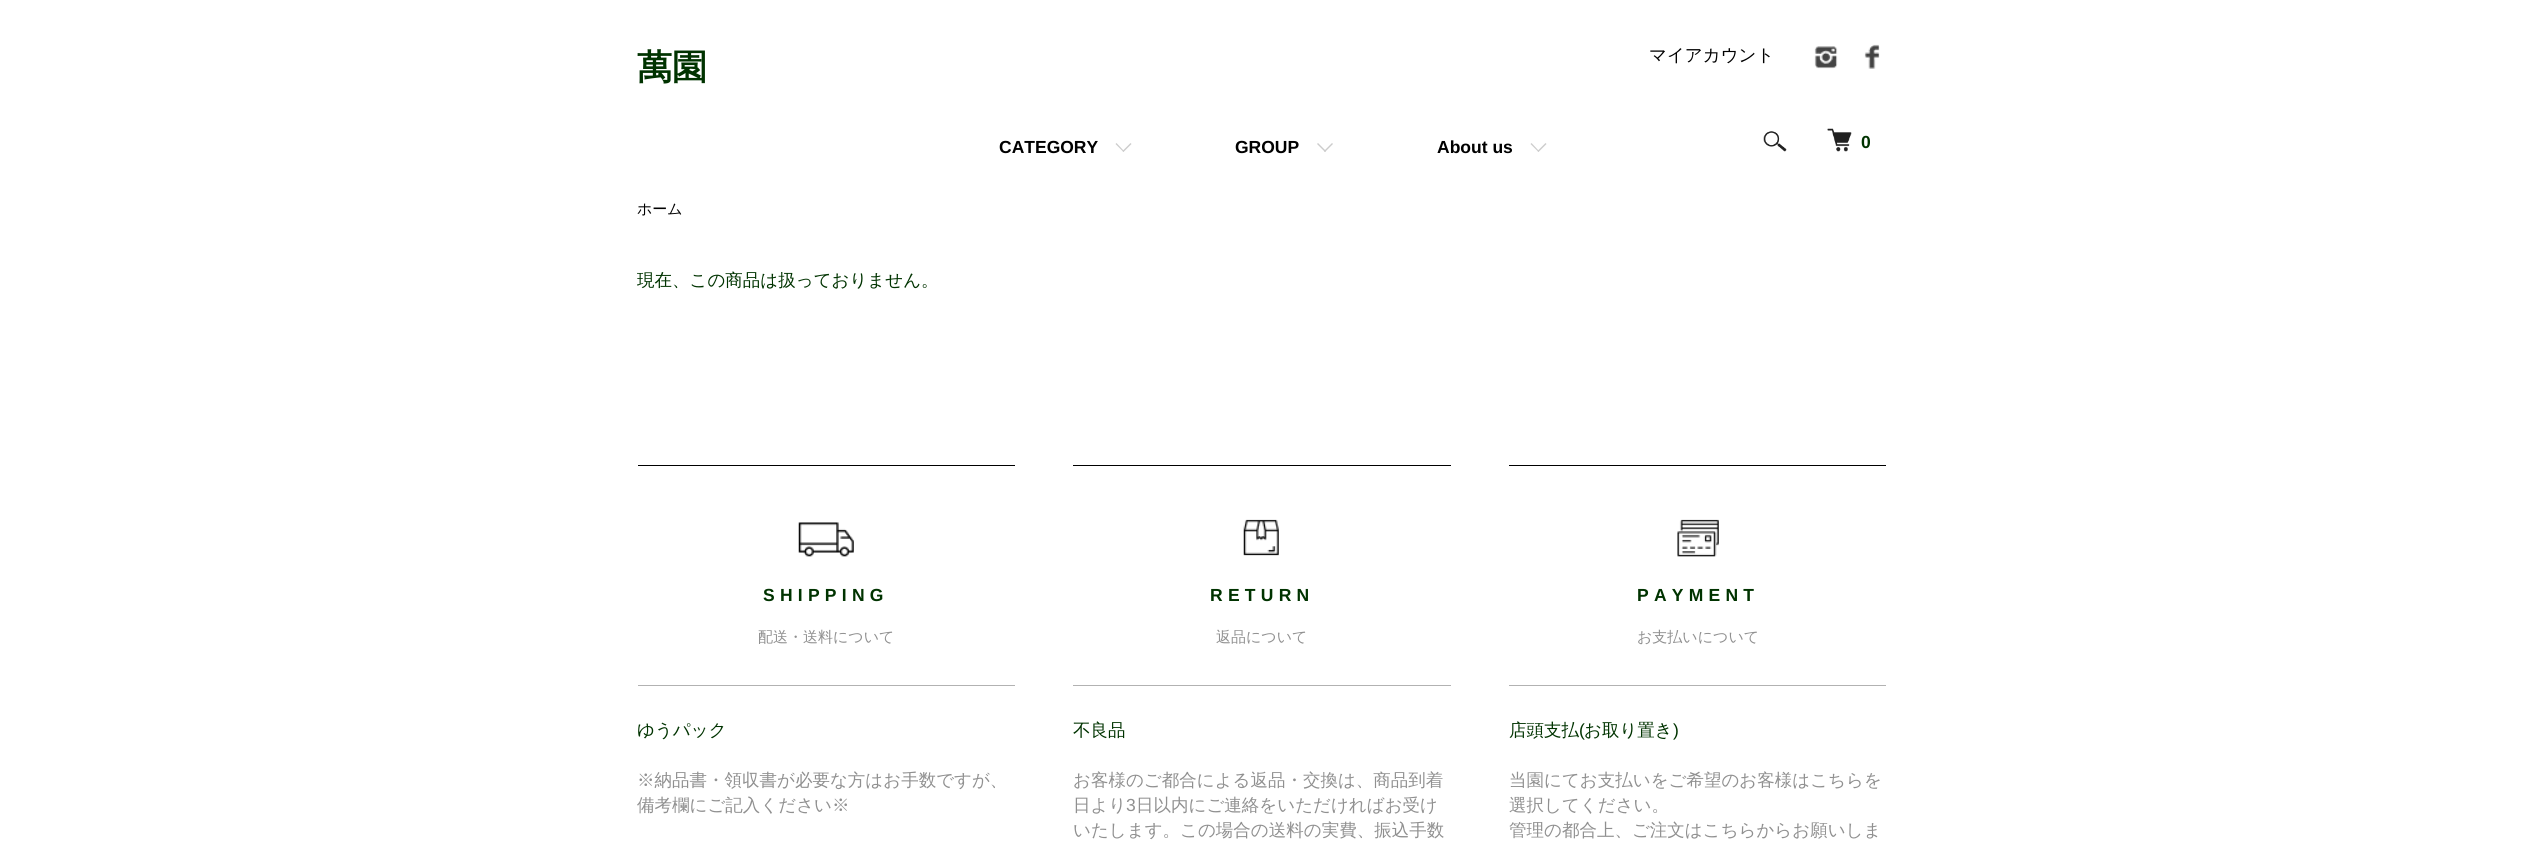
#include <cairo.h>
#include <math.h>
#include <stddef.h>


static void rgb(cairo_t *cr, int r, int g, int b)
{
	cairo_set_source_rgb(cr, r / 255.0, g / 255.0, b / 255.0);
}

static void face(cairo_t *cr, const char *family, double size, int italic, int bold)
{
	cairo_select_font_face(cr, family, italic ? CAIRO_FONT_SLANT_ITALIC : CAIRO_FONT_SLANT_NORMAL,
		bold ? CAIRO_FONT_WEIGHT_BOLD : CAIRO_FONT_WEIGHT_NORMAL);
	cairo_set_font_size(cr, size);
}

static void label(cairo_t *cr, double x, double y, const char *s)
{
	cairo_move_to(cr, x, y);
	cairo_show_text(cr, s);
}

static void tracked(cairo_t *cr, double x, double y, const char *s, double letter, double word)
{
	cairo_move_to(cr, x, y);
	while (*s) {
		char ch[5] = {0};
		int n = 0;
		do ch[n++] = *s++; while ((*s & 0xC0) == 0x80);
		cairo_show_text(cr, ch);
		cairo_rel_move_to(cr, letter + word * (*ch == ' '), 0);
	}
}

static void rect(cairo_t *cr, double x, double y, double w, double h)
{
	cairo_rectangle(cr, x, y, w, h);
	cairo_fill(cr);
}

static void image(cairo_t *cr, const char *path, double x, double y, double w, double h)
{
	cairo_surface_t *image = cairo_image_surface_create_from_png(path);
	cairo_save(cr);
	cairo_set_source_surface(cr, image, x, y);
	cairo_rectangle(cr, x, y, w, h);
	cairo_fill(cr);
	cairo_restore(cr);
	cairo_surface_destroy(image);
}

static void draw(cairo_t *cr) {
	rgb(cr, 255, 255, 255);
	cairo_paint(cr);
	face(cr, "WenQuanYi Zen Hei Medium", 17.5, 0, 0);
	rgb(cr, 0, 0, 0);
	label(cr, 1649, 61, "マイアカウント");
	image(cr, "image0.png", 1814, 46, 24, 23);
	image(cr, "image1.png", 1864, 44, 16, 25);
	face(cr, "Liberation Sans", 17.5, 0, 1);
	label(cr, 999, 153, "CATEGORY");
	rgb(cr, 204, 204, 204);
	cairo_new_path(cr);
	cairo_move_to(cr, 1130.5, 143);
	cairo_line_to(cr, 1131.5, 144);
	cairo_line_to(cr, 1123.5, 152);
	cairo_line_to(cr, 1122.5, 151);
	cairo_close_path(cr);
	cairo_fill(cr);
	cairo_new_path(cr);
	cairo_move_to(cr, 1116.5, 143);
	cairo_line_to(cr, 1124, 151);
	cairo_line_to(cr, 1123.5, 152);
	cairo_line_to(cr, 1115.5, 144);
	cairo_close_path(cr);
	cairo_fill(cr);
	rgb(cr, 0, 0, 0);
	label(cr, 1235, 153, "GROUP");
	rgb(cr, 204, 204, 204);
	cairo_new_path(cr);
	cairo_move_to(cr, 1332, 143);
	cairo_line_to(cr, 1333, 144);
	cairo_line_to(cr, 1325, 152);
	cairo_line_to(cr, 1324, 151);
	cairo_close_path(cr);
	cairo_fill(cr);
	cairo_new_path(cr);
	cairo_move_to(cr, 1318, 143);
	cairo_line_to(cr, 1326, 151);
	cairo_line_to(cr, 1325, 152);
	cairo_line_to(cr, 1317, 144);
	cairo_close_path(cr);
	cairo_fill(cr);
	rgb(cr, 0, 0, 0);
	label(cr, 1437, 153, "About us");
	rgb(cr, 204, 204, 204);
	cairo_new_path(cr);
	cairo_move_to(cr, 1545.5, 143);
	cairo_line_to(cr, 1546.5, 144);
	cairo_line_to(cr, 1538.5, 152);
	cairo_line_to(cr, 1537.5, 151);
	cairo_close_path(cr);
	cairo_fill(cr);
	cairo_new_path(cr);
	cairo_move_to(cr, 1531.5, 143);
	cairo_line_to(cr, 1539, 151);
	cairo_line_to(cr, 1538.5, 152);
	cairo_line_to(cr, 1530.5, 144);
	cairo_close_path(cr);
	cairo_fill(cr);
	face(cr, "WenQuanYi Zen Hei", 35, 0, 1);
	rgb(cr, 0, 51, 0);
	label(cr, 637, 79, "萬園");
	image(cr, "image2.png", 1763, 131, 24, 21);
	image(cr, "image3.png", 1827, 128, 25, 24);
	face(cr, "Liberation Sans", 17.5, 0, 1);
	label(cr, 1861, 148, "0");
	face(cr, "WenQuanYi Zen Hei Medium", 15, 0, 0);
	rgb(cr, 0, 0, 0);
	label(cr, 637, 214, "ホーム");
	face(cr, "WenQuanYi Zen Hei Medium", 17.5, 0, 0);
	rgb(cr, 0, 51, 0);
	label(cr, 637, 286, "現在、この商品は扱っておりません。");
	rgb(cr, 0, 0, 0);
	rect(cr, 638, 465, 377, 1);
	rgb(cr, 178, 178, 178);
	rect(cr, 638, 685, 377, 1);
	image(cr, "image4.png", 798, 522, 56, 35);
	face(cr, "Liberation Sans", 17.5, 0, 1);
	rgb(cr, 0, 51, 0);
	tracked(cr, 763, 601, "SHIPPING", 5.25, 0);
	face(cr, "WenQuanYi Zen Hei Medium", 15, 0, 0);
	rgb(cr, 144, 144, 144);
	label(cr, 758, 642, "配送・送料について");
	face(cr, "WenQuanYi Zen Hei Medium", 17.5, 0, 0);
	rgb(cr, 0, 51, 0);
	label(cr, 637, 736, "ゆうパック");
	rgb(cr, 144, 144, 144);
	label(cr, 637, 786, "※納品書・領収書が必要な方はお手数ですが、");
	label(cr, 637, 811, "備考欄にご記入ください※");
	rgb(cr, 0, 0, 0);
	rect(cr, 1073, 465, 378, 1);
	rgb(cr, 178, 178, 178);
	rect(cr, 1073, 685, 378, 1);
	image(cr, "image5.png", 1243, 519, 36, 37);
	face(cr, "Liberation Sans", 17.5, 0, 1);
	rgb(cr, 0, 51, 0);
	tracked(cr, 1210, 601, "RETURN", 5.25, 0);
	face(cr, "WenQuanYi Zen Hei Medium", 15, 0, 0);
	rgb(cr, 144, 144, 144);
	label(cr, 1216, 642, "返品について");
	face(cr, "WenQuanYi Zen Hei Medium", 17.5, 0, 0);
	rgb(cr, 0, 51, 0);
	label(cr, 1073, 736, "不良品");
	rgb(cr, 144, 144, 144);
	label(cr, 1073, 786, "お客様のご都合による返品・交換は、商品到着");
	label(cr, 1073, 811, "日より");
	face(cr, "Liberation Sans", 17.5, 0, 0);
	label(cr, 1126, 811, "3");
	face(cr, "WenQuanYi Zen Hei Medium", 17.5, 0, 0);
	label(cr, 1136, 811, "日以内にご連絡をいただければお受け");
	label(cr, 1073, 836, "いたします。この場合の送料の実費、振込手数");
	rgb(cr, 0, 0, 0);
	rect(cr, 1509, 465, 377, 1);
	rgb(cr, 178, 178, 178);
	rect(cr, 1509, 685, 377, 1);
	image(cr, "image6.png", 1677, 519, 42, 38);
	face(cr, "Liberation Sans", 17.5, 0, 1);
	rgb(cr, 0, 51, 0);
	tracked(cr, 1637, 601, "PAYMENT", 5.25, 0);
	face(cr, "WenQuanYi Zen Hei Medium", 15, 0, 0);
	rgb(cr, 144, 144, 144);
	label(cr, 1637, 642, "お支払いについて");
	face(cr, "WenQuanYi Zen Hei Medium", 17.5, 0, 0);
	rgb(cr, 0, 51, 0);
	label(cr, 1509, 736, "店頭支払");
	face(cr, "Liberation Sans", 17.5, 0, 0);
	label(cr, 1579, 736, "(");
	face(cr, "WenQuanYi Zen Hei Medium", 17.5, 0, 0);
	label(cr, 1584, 736, "お取り置き");
	face(cr, "Liberation Sans", 17.5, 0, 0);
	label(cr, 1673, 736, ")");
	face(cr, "WenQuanYi Zen Hei Medium", 17.5, 0, 0);
	rgb(cr, 144, 144, 144);
	label(cr, 1509, 786, "当園にてお支払いをご希望のお客様はこちらを");
	label(cr, 1509, 811, "選択してください。");
	label(cr, 1509, 836, "管理の都合上、ご注文はこちらからお願いしま");
}

int main(void) {
	cairo_surface_t *surface = cairo_image_surface_create(CAIRO_FORMAT_RGB24, 2523, 852);
	cairo_t *cr = cairo_create(surface);
	cairo_font_options_t *options = cairo_font_options_create();
	cairo_font_options_set_hint_metrics(options, CAIRO_HINT_METRICS_OFF);
	cairo_font_options_set_hint_style(options, CAIRO_HINT_STYLE_NONE);
	cairo_set_font_options(cr, options);
	cairo_set_miter_limit(cr, 4);
	draw(cr);
	cairo_surface_write_to_png(surface, "render.png");
	cairo_font_options_destroy(options);
	cairo_destroy(cr);
	cairo_surface_destroy(surface);
	return 0;
}
